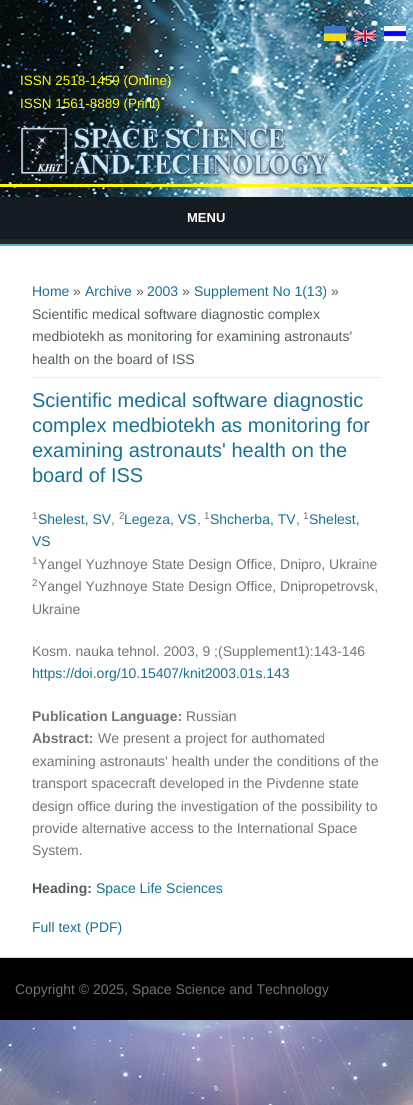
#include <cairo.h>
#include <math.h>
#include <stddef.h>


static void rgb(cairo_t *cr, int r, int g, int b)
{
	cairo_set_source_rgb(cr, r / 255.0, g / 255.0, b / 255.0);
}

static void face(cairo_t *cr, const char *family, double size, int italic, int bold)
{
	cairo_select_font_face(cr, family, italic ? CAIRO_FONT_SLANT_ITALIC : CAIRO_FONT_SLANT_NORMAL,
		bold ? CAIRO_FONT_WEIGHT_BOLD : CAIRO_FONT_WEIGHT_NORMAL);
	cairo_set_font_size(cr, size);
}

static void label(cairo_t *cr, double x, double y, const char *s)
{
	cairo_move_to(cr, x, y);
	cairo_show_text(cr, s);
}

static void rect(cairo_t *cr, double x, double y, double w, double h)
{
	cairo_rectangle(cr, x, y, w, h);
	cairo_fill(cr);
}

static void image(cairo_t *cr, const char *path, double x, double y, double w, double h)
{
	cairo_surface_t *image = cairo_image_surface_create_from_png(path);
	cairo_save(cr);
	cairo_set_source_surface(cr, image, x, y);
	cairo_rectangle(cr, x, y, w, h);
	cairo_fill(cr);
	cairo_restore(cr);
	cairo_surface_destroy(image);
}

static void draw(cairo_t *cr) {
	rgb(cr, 255, 255, 255);
	cairo_paint(cr);
	image(cr, "image0.png", 0, 0, 413, 1105);
	image(cr, "image1.png", 324, 26, 22, 15);
	image(cr, "image2.png", 354, 30, 22, 11);
	image(cr, "image3.png", 384, 26, 22, 15);
	face(cr, "Liberation Sans", 13.5, 0, 0);
	rgb(cr, 253, 248, 9);
	label(cr, 20, 85, "ISSN 2518-1459 (Online)");
	label(cr, 20, 108, "ISSN 1561-8889 (Print)");
	image(cr, "image4.png", 21, 126, 309, 52);
	rect(cr, 0, 184, 413, 3);
	rgb(cr, 39, 39, 39);
	rect(cr, 0, 240, 413, 4);
	rgb(cr, 91, 177, 214);
	rect(cr, 0, 244, 413, 2);
	rgb(cr, 20, 27, 33);
	rect(cr, 0, 197, 413, 42);
	rgb(cr, 30, 38, 45);
	rect(cr, 0, 239, 413, 1);
	face(cr, "Liberation Sans", 13, 0, 1);
	rgb(cr, 255, 255, 255);
	label(cr, 187, 222, "MENU");
	rect(cr, 0, 246, 413, 711);
	rgb(cr, 238, 238, 238);
	rect(cr, 32, 377, 349, 1);
	face(cr, "Liberation Sans", 14, 0, 0);
	rgb(cr, 24, 112, 149);
	label(cr, 32, 296, "Home");
	rgb(cr, 81, 95, 92);
	label(cr, 73, 296, "»");
	rgb(cr, 24, 112, 149);
	label(cr, 85, 296, "Archive");
	rgb(cr, 81, 95, 92);
	label(cr, 136, 296, "»");
	rgb(cr, 24, 112, 149);
	label(cr, 147, 296, "2003");
	rgb(cr, 81, 95, 92);
	label(cr, 182, 296, "»");
	rgb(cr, 24, 112, 149);
	label(cr, 194, 296, "Supplement No 1(13)");
	rgb(cr, 81, 95, 92);
	label(cr, 331, 296, "»");
	label(cr, 32, 319, "Scientific medical software diagnostic complex");
	label(cr, 32, 341, "medbiotekh as monitoring for examining astronauts'");
	label(cr, 32, 364, "health on the board of ISS");
	face(cr, "Liberation Sans", 20, 0, 0);
	rgb(cr, 24, 112, 149);
	label(cr, 32, 407, "Scientific medical software diagnostic");
	label(cr, 32, 432, "complex medbiotekh as monitoring for");
	label(cr, 32, 457, "examining astronauts' health on the");
	label(cr, 32, 482, "board of ISS");
	face(cr, "Liberation Sans", 10, 0, 0);
	rgb(cr, 116, 116, 116);
	label(cr, 32, 519, "1");
	face(cr, "Liberation Sans", 14, 0, 0);
	rgb(cr, 24, 112, 149);
	label(cr, 38, 524, "Shelest, SV");
	rgb(cr, 116, 116, 116);
	label(cr, 111, 524, ",");
	face(cr, "Liberation Sans", 10, 0, 0);
	label(cr, 119, 519, "2");
	face(cr, "Liberation Sans", 14, 0, 0);
	rgb(cr, 24, 112, 149);
	label(cr, 124, 524, "Legeza, VS");
	rgb(cr, 116, 116, 116);
	label(cr, 197, 524, ",");
	face(cr, "Liberation Sans", 10, 0, 0);
	label(cr, 204, 519, "1");
	face(cr, "Liberation Sans", 14, 0, 0);
	rgb(cr, 24, 112, 149);
	label(cr, 210, 524, "Shcherba, TV");
	rgb(cr, 116, 116, 116);
	label(cr, 296, 524, ",");
	face(cr, "Liberation Sans", 10, 0, 0);
	label(cr, 303, 519, "1");
	face(cr, "Liberation Sans", 14, 0, 0);
	rgb(cr, 24, 112, 149);
	label(cr, 309, 524, "Shelest,");
	label(cr, 32, 546, "VS");
	face(cr, "Liberation Sans", 10, 0, 0);
	rgb(cr, 116, 116, 116);
	label(cr, 32, 564, "1");
	face(cr, "Liberation Sans", 14, 0, 0);
	label(cr, 38, 569, "Yangel Yuzhnoye State Design Office, Dnipro, Ukraine");
	face(cr, "Liberation Sans", 10, 0, 0);
	label(cr, 32, 586, "2");
	face(cr, "Liberation Sans", 14, 0, 0);
	label(cr, 38, 591, "Yangel Yuzhnoye State Design Office, Dnipropetrovsk,");
	label(cr, 32, 614, "Ukraine");
	label(cr, 32, 656, "Kosm. nauka tehnol. 2003, 9 ;(Supplement1):143-146");
	rgb(cr, 24, 112, 149);
	label(cr, 32, 678, "https://doi.org/10.15407/knit2003.01s.143");
	face(cr, "Liberation Sans", 14, 0, 1);
	rgb(cr, 116, 116, 116);
	label(cr, 32, 721, "Publication Language:");
	face(cr, "Liberation Sans", 14, 0, 0);
	label(cr, 186, 721, "Russian");
	face(cr, "Liberation Sans", 14, 0, 1);
	label(cr, 32, 743, "Abstract:");
	face(cr, "Liberation Sans", 14, 0, 0);
	label(cr, 98, 743, "We present a project for authomated");
	label(cr, 32, 766, "examining astronauts' health under the conditions of the");
	label(cr, 32, 788, "transport spacecraft developed in the Pivdenne state");
	label(cr, 32, 811, "design office during the investigation of the possibility to");
	label(cr, 32, 833, "provide alternative access to the International Space");
	label(cr, 32, 855, "System.");
	face(cr, "Liberation Sans", 14, 0, 1);
	rgb(cr, 81, 95, 92);
	label(cr, 32, 893, "Heading:");
	face(cr, "Liberation Sans", 14, 0, 0);
	rgb(cr, 24, 112, 149);
	label(cr, 96, 893, "Space Life Sciences");
	label(cr, 32, 932, "Full text (PDF)");
	rgb(cr, 207, 215, 219);
	rect(cr, 0, 957, 413, 1);
	rgb(cr, 0, 0, 0);
	rect(cr, 0, 958, 413, 62);
	rgb(cr, 116, 116, 116);
	label(cr, 15, 994, "Copyright © 2025, Space Science and Technology");
}

int main(void) {
	cairo_surface_t *surface = cairo_image_surface_create(CAIRO_FORMAT_RGB24, 413, 1105);
	cairo_t *cr = cairo_create(surface);
	cairo_font_options_t *options = cairo_font_options_create();
	cairo_font_options_set_hint_metrics(options, CAIRO_HINT_METRICS_OFF);
	cairo_font_options_set_hint_style(options, CAIRO_HINT_STYLE_NONE);
	cairo_set_font_options(cr, options);
	cairo_set_miter_limit(cr, 4);
	draw(cr);
	cairo_surface_write_to_png(surface, "render.png");
	cairo_font_options_destroy(options);
	cairo_destroy(cr);
	cairo_surface_destroy(surface);
	return 0;
}
